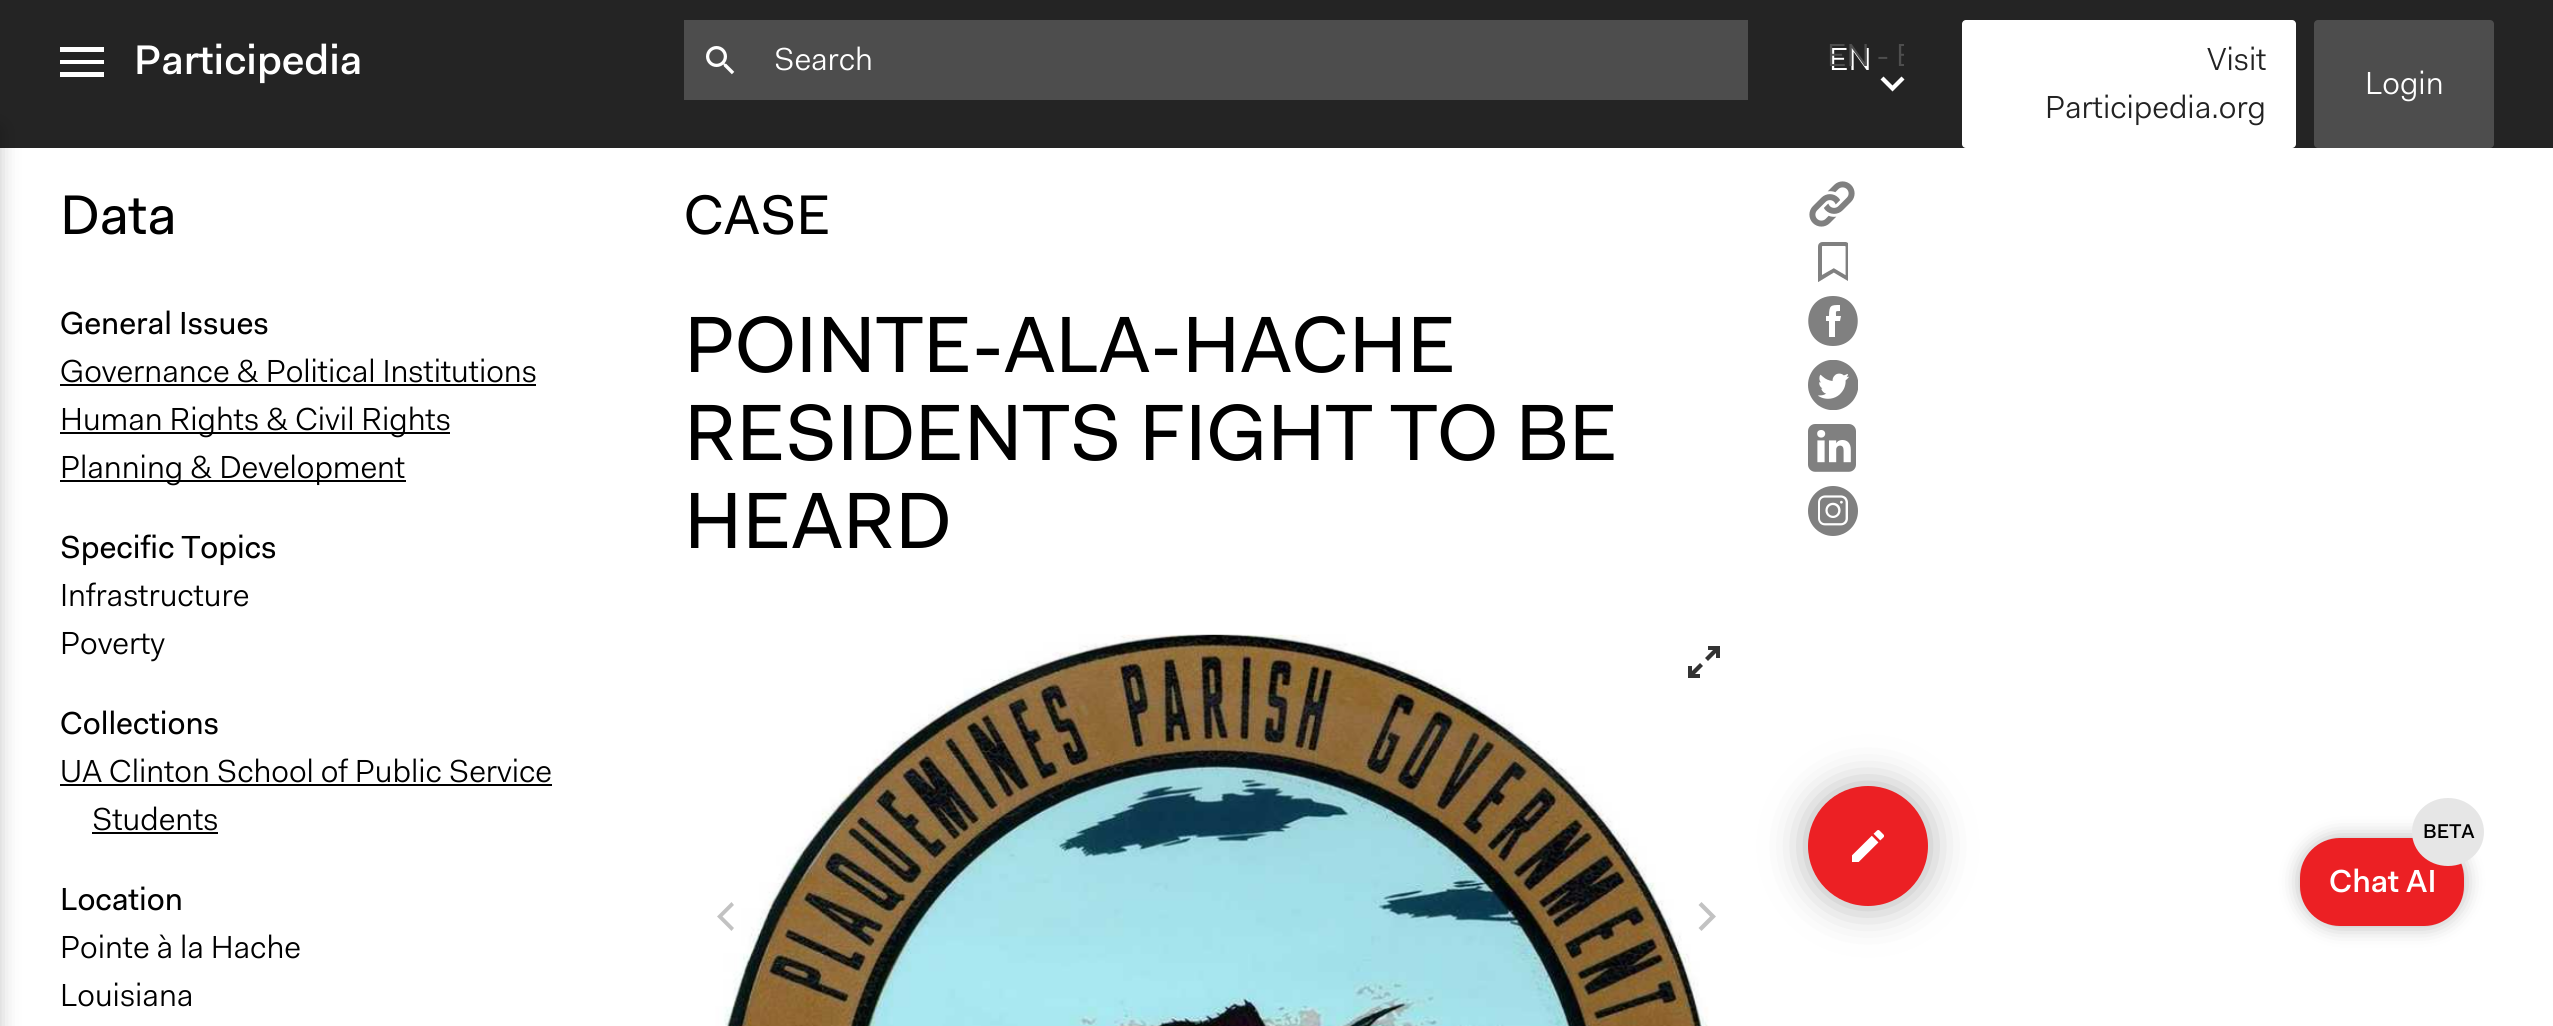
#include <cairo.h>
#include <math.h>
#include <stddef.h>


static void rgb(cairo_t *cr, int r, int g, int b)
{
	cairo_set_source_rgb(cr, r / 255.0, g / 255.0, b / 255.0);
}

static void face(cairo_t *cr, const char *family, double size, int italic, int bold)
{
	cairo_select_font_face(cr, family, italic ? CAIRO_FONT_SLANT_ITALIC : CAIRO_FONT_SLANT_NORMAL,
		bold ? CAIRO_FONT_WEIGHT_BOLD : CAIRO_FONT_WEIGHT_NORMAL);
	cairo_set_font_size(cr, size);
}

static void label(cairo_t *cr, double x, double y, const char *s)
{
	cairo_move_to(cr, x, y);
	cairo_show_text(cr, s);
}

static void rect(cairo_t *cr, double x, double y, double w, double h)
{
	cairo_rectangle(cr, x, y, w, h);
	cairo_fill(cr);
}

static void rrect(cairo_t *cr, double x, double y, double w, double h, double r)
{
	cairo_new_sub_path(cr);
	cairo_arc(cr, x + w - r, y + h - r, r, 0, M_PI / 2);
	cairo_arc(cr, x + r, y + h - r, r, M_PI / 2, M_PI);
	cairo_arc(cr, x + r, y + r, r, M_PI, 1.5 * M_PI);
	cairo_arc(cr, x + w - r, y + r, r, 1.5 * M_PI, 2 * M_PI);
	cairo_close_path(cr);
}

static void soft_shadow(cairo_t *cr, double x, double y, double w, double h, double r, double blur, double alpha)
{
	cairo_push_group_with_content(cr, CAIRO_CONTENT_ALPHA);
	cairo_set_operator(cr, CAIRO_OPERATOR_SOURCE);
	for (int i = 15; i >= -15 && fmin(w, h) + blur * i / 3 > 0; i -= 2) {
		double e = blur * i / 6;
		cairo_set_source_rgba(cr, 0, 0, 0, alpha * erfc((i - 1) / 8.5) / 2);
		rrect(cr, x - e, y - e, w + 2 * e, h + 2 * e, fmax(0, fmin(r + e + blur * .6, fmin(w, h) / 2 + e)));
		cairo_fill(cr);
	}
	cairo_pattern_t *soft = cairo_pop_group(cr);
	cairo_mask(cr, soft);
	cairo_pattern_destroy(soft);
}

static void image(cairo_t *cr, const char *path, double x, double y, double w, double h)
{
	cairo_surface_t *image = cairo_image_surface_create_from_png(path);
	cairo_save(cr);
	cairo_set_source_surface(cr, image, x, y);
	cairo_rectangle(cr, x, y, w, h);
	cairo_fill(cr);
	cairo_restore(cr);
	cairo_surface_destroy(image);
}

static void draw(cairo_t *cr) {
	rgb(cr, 255, 255, 255);
	cairo_paint(cr);
	rgb(cr, 36, 36, 36);
	rect(cr, 0, 0, 2553, 148);
	rgb(cr, 255, 255, 255);
	cairo_set_fill_rule(cr, CAIRO_FILL_RULE_EVEN_ODD);
	cairo_new_path(cr);
	cairo_move_to(cr, 60, 77);
	cairo_line_to(cr, 104, 77);
	cairo_line_to(cr, 104, 72);
	cairo_line_to(cr, 60, 72);
	cairo_close_path(cr);
	cairo_move_to(cr, 60, 64);
	cairo_line_to(cr, 104, 64);
	cairo_line_to(cr, 104, 60);
	cairo_line_to(cr, 60, 60);
	cairo_close_path(cr);
	cairo_move_to(cr, 60, 52);
	cairo_line_to(cr, 104, 52);
	cairo_line_to(cr, 104, 47);
	cairo_line_to(cr, 60, 47);
	cairo_close_path(cr);
	cairo_fill(cr);
	face(cr, "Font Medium", 41.5, 0, 0);
	label(cr, 134, 74, "Participedia");
	rgb(cr, 77, 77, 77);
	rect(cr, 684, 20, 1064, 80);
	image(cr, "image0.png", 706, 46, 29, 29);
	face(cr, "Font Light", 32, 0, 0);
	rgb(cr, 255, 255, 255);
	label(cr, 774, 70, "Search");
	cairo_new_path(cr);
	cairo_move_to(cr, 1901.5, 76.5);
	cairo_line_to(cr, 1904.5, 79.5);
	cairo_line_to(cr, 1892.5, 91.5);
	cairo_line_to(cr, 1880.5, 79.5);
	cairo_line_to(cr, 1883.5, 76.5);
	cairo_line_to(cr, 1892.5, 85.5);
	cairo_close_path(cr);
	cairo_fill(cr);
	label(cr, 1829, 70, "EN");
	cairo_save(cr);
	cairo_set_fill_rule(cr, CAIRO_FILL_RULE_WINDING);
	cairo_rectangle(cr, 1826, 38, 78, 36);
	cairo_clip(cr);
	rgb(cr, 78, 78, 78);
	label(cr, 1827, 66, "EN - E");
	cairo_restore(cr);
	rrect(cr, 1962, 20, 334, 128, 4);
	cairo_fill(cr);
	rgb(cr, 34, 34, 34);
	label(cr, 2207, 70, "Visit");
	label(cr, 2045, 118, "Participedia.org");
	rgb(cr, 77, 77, 77);
	rrect(cr, 2314, 20, 180, 128, 4);
	cairo_fill(cr);
	rgb(cr, 255, 255, 255);
	label(cr, 2365, 94, "Login");
	rgb(cr, 0, 0, 0);
	soft_shadow(cr, -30, 128, 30, 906, 0, 10, 0.23);
	face(cr, "Font", 56, 0, 0);
	rgb(cr, 0, 0, 0);
	label(cr, 60, 234, "Data");
	face(cr, "Font", 32, 0, 0);
	label(cr, 60, 334, "General Issues");
	face(cr, "Font Light", 32, 0, 0);
	label(cr, 60, 382, "Governance & Political Institutions");
	rect(cr, 60, 384, 476, 2);
	rect(cr, 60, 432, 390, 2);
	label(cr, 60, 430, "Human Rights & Civil Rights");
	rect(cr, 60, 480, 346, 2);
	label(cr, 60, 478, "Planning & Development");
	face(cr, "Font", 32, 0, 0);
	label(cr, 60, 558, "Specific Topics");
	face(cr, "Font Light", 32, 0, 0);
	label(cr, 60, 606, "Infrastructure");
	label(cr, 60, 654, "Poverty");
	face(cr, "Font", 32, 0, 0);
	label(cr, 60, 734, "Collections");
	face(cr, "Font Light", 32, 0, 0);
	label(cr, 60, 782, "UA Clinton School of Public Service");
	rect(cr, 60, 784, 492, 2);
	label(cr, 92, 830, "Students");
	rect(cr, 92, 832, 126, 2);
	face(cr, "Font", 32, 0, 0);
	label(cr, 60, 910, "Location");
	face(cr, "Font Light", 32, 0, 0);
	label(cr, 60, 958, "Pointe à la Hache");
	label(cr, 60, 1006, "Louisiana");
	face(cr, "Font", 56, 0, 0);
	label(cr, 684, 234, "CASE");
	face(cr, "Font", 80, 0, 0);
	label(cr, 684, 372, "POINTE-ALA-HACHE");
	label(cr, 684, 460, "RESIDENTS FIGHT TO BE");
	label(cr, 684, 548, "HEARD");
	image(cr, "image1.png", 684, 618, 1064, 408);
	image(cr, "image2.png", 1688, 646, 32, 32);
	rgb(cr, 194, 194, 194);
	cairo_set_fill_rule(cr, CAIRO_FILL_RULE_WINDING);
	cairo_new_path(cr);
	cairo_move_to(cr, 717, 916.5);
	cairo_line_to(cr, 731.5, 931);
	cairo_line_to(cr, 734, 928);
	cairo_line_to(cr, 722.5, 916.5);
	cairo_line_to(cr, 734, 905);
	cairo_line_to(cr, 731.5, 902);
	cairo_close_path(cr);
	cairo_fill(cr);
	cairo_new_path(cr);
	cairo_move_to(cr, 1716, 916.5);
	cairo_line_to(cr, 1701.5, 902);
	cairo_line_to(cr, 1698.5, 905);
	cairo_line_to(cr, 1710, 916.5);
	cairo_line_to(cr, 1698.5, 928);
	cairo_line_to(cr, 1701.5, 931);
	cairo_close_path(cr);
	cairo_fill(cr);
	image(cr, "image3.png", 1809, 181, 46, 46);
	image(cr, "image4.png", 1818, 242, 30, 40);
	rgb(cr, 128, 128, 128);
	cairo_new_path(cr);
	cairo_move_to(cr, 1833, 296);
	cairo_curve_to(cr, 1800, 296, 1800, 346, 1833, 346);
	cairo_curve_to(cr, 1866, 346, 1866, 296, 1833, 296);
	cairo_close_path(cr);
	cairo_move_to(cr, 1840, 311);
	cairo_curve_to(cr, 1835, 311, 1836, 311, 1836, 316);
	cairo_line_to(cr, 1841, 316);
	cairo_line_to(cr, 1840, 321);
	cairo_line_to(cr, 1835, 321);
	cairo_line_to(cr, 1835, 337);
	cairo_line_to(cr, 1829, 337);
	cairo_line_to(cr, 1829, 321);
	cairo_line_to(cr, 1826, 321);
	cairo_line_to(cr, 1826, 316);
	cairo_line_to(cr, 1829, 316);
	cairo_curve_to(cr, 1829, 305, 1831, 305, 1840, 305);
	cairo_close_path(cr);
	cairo_fill(cr);
	image(cr, "image5.png", 1808, 360, 50, 50);
	image(cr, "image6.png", 1808, 424, 48, 48);
	image(cr, "image7.png", 1808, 486, 50, 50);
	rgb(cr, 179, 179, 179);
	soft_shadow(cr, 1806, 784, 124, 124, 62, 20, 1);
	rgb(cr, 236, 32, 36);
	cairo_arc(cr, 1868, 846, 60, 0, 2 * M_PI);
	cairo_fill(cr);
	image(cr, "image8.png", 1852, 830, 32, 32);
	rgb(cr, 0, 0, 0);
	soft_shadow(cr, 2300, 838, 164, 88, 40, 10, 0.3);
	rgb(cr, 236, 32, 36);
	rrect(cr, 2300, 838, 164, 88, 40);
	cairo_fill(cr);
	rgb(cr, 230, 230, 230);
	cairo_new_path(cr);
	cairo_move_to(cr, 2448, 798);
	cairo_curve_to(cr, 2468, 798, 2484, 813, 2484, 832);
	cairo_curve_to(cr, 2484, 851, 2468, 866, 2448, 866);
	cairo_curve_to(cr, 2428, 866, 2412, 851, 2412, 832);
	cairo_curve_to(cr, 2412, 813, 2428, 798, 2448, 798);
	cairo_close_path(cr);
	cairo_fill(cr);
	face(cr, "Font Medium", 20, 0, 0);
	rgb(cr, 0, 0, 0);
	label(cr, 2423, 838, "BETA");
	face(cr, "Font Medium", 32, 0, 0);
	rgb(cr, 255, 255, 255);
	label(cr, 2329, 892, "Chat AI");
}

int main(void) {
	cairo_surface_t *surface = cairo_image_surface_create(CAIRO_FORMAT_RGB24, 2553, 1026);
	cairo_t *cr = cairo_create(surface);
	cairo_font_options_t *options = cairo_font_options_create();
	cairo_font_options_set_hint_metrics(options, CAIRO_HINT_METRICS_OFF);
	cairo_font_options_set_hint_style(options, CAIRO_HINT_STYLE_NONE);
	cairo_set_font_options(cr, options);
	cairo_set_miter_limit(cr, 4);
	draw(cr);
	cairo_surface_write_to_png(surface, "render.png");
	cairo_font_options_destroy(options);
	cairo_destroy(cr);
	cairo_surface_destroy(surface);
	return 0;
}
